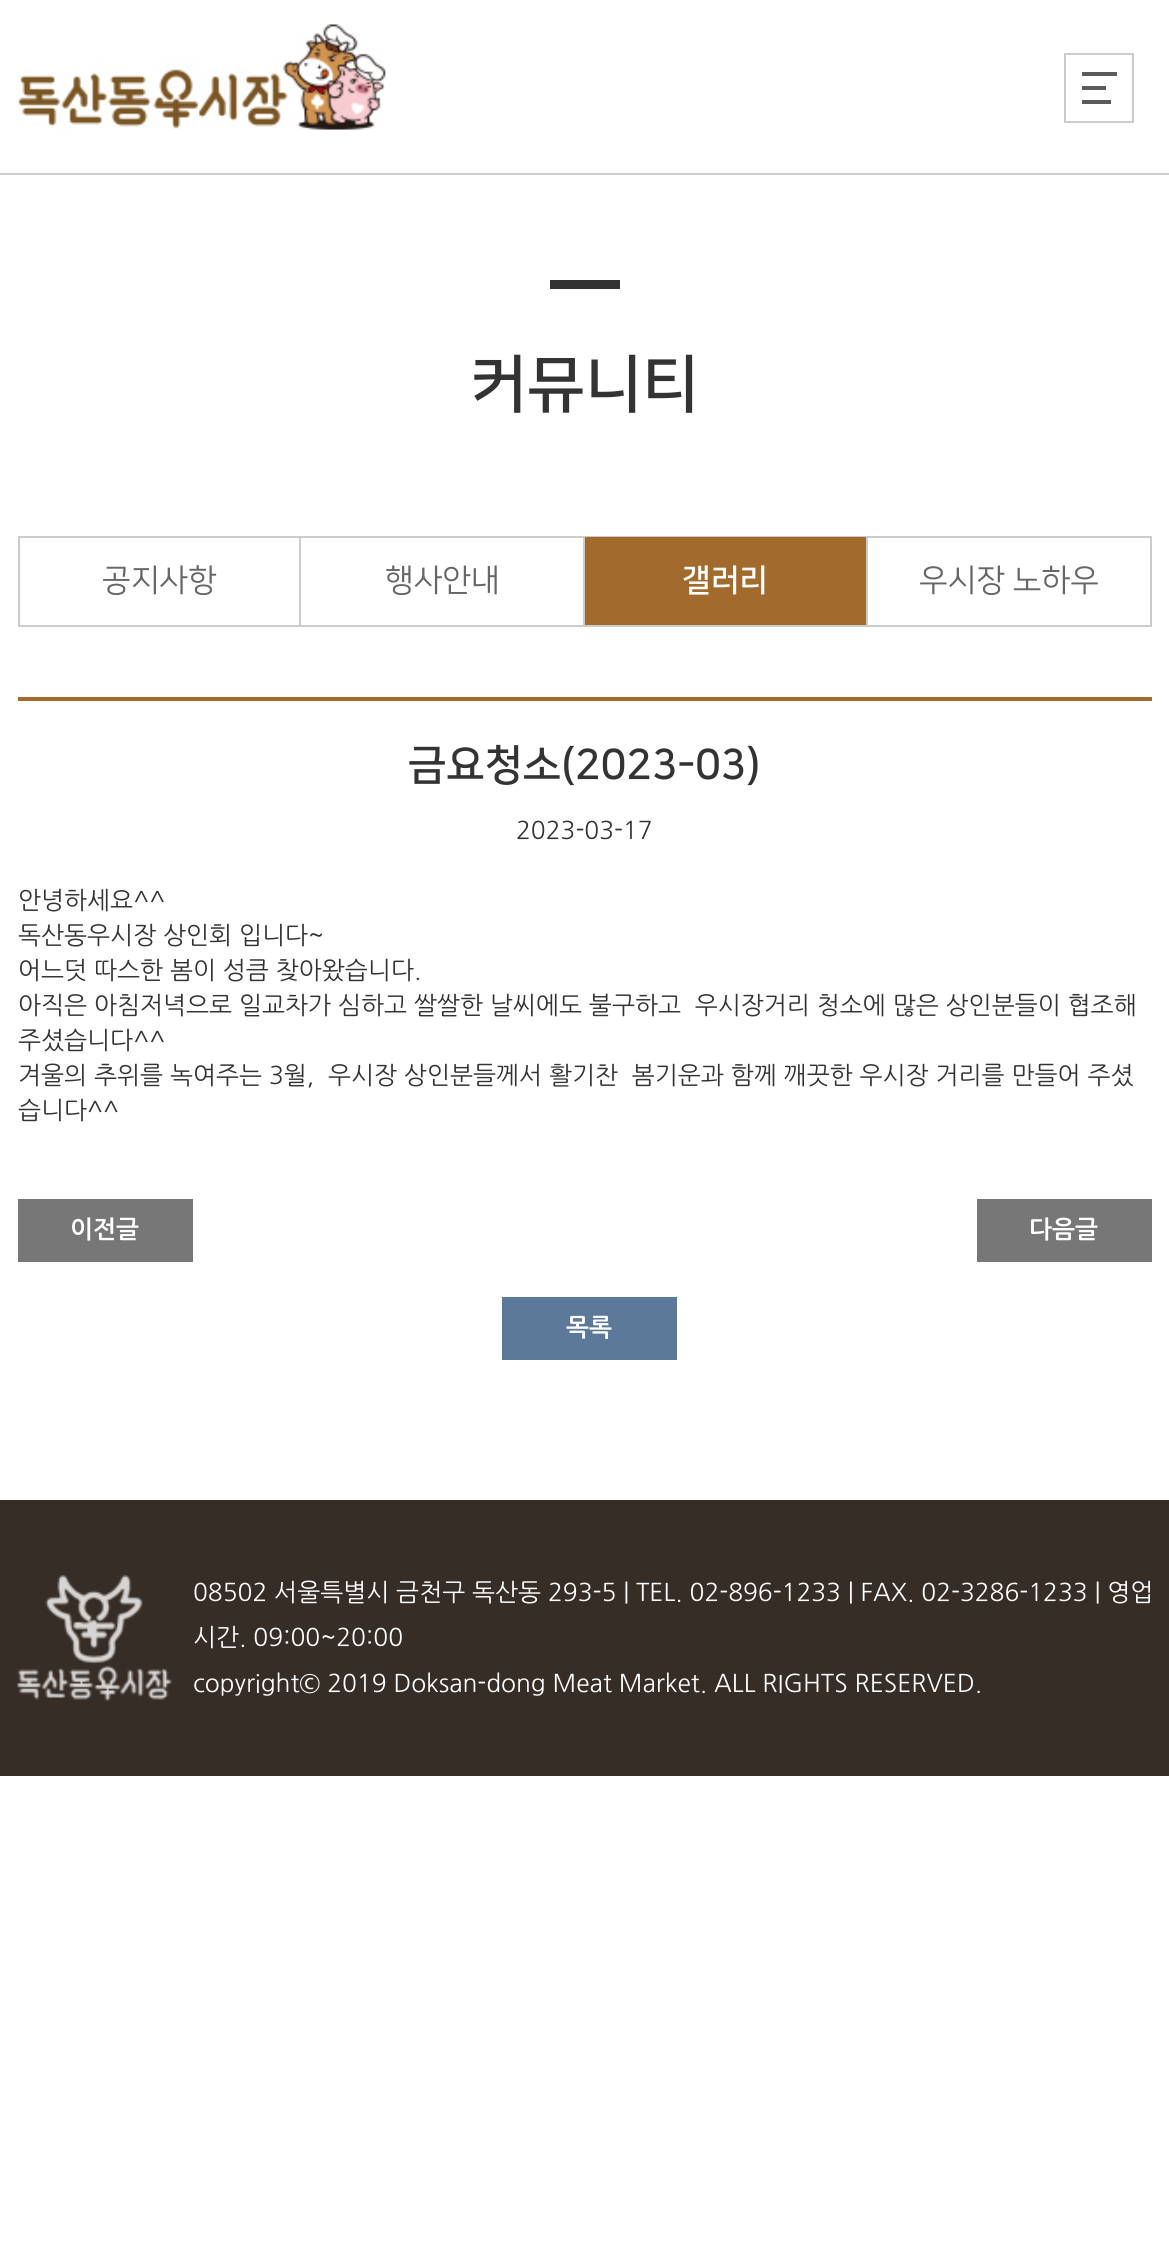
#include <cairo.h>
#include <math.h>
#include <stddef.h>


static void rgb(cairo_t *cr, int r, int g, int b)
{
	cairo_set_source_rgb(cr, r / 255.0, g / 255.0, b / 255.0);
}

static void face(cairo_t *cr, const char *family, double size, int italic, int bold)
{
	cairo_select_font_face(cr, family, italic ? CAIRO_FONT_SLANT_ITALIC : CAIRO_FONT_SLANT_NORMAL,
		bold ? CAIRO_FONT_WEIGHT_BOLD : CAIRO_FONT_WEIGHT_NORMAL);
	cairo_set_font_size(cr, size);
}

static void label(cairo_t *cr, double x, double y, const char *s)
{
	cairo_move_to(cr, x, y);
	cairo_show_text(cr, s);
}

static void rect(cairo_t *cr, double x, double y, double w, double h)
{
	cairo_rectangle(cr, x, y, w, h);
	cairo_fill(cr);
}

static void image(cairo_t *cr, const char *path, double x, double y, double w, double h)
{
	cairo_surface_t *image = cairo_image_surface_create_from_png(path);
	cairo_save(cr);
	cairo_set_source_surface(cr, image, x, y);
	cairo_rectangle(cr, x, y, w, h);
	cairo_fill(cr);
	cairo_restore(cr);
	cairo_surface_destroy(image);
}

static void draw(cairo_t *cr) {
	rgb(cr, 255, 255, 255);
	cairo_paint(cr);
	rgb(cr, 204, 204, 204);
	rect(cr, 0, 173, 1169, 2);
	image(cr, "image0.png", 18, 24, 368, 106);
	cairo_rectangle(cr, 1065, 54, 68, 68);
	cairo_stroke(cr);
	rgb(cr, 91, 91, 91);
	rect(cr, 1082, 72, 35, 4);
	rect(cr, 1082, 86, 24, 4);
	rect(cr, 1082, 100, 29, 4);
	rgb(cr, 51, 51, 51);
	rect(cr, 550, 280, 70, 9);
	face(cr, "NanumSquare", 63, 0, 1);
	label(cr, 470, 404, "커뮤니티");
	rgb(cr, 204, 204, 204);
	rect(cr, 18, 536, 1134, 2);
	rect(cr, 18, 625, 1134, 2);
	rect(cr, 299, 537, 2, 88);
	rect(cr, 18, 537, 2, 88);
	face(cr, "NanumSquare", 31.5, 0, 0);
	rgb(cr, 102, 102, 102);
	label(cr, 102, 590, "공지사항");
	rgb(cr, 204, 204, 204);
	rect(cr, 583, 537, 2, 88);
	rgb(cr, 102, 102, 102);
	label(cr, 385, 590, "행사안내");
	rgb(cr, 204, 204, 204);
	rect(cr, 866, 537, 2, 88);
	rgb(cr, 163, 106, 45);
	rect(cr, 585, 537, 281, 88);
	face(cr, "NanumSquare", 31.5, 0, 1);
	rgb(cr, 255, 255, 255);
	label(cr, 682, 590, "갤러리");
	rgb(cr, 204, 204, 204);
	rect(cr, 1150, 537, 2, 88);
	face(cr, "NanumSquare", 31.5, 0, 0);
	rgb(cr, 102, 102, 102);
	label(cr, 919, 590, "우시장 노하우");
	rgb(cr, 163, 106, 45);
	rect(cr, 18, 697, 1134, 4);
	face(cr, "NanumSquare", 42, 0, 1);
	rgb(cr, 51, 51, 51);
	label(cr, 408, 778, "금요청소(2023-03)");
	face(cr, "NanumGothic", 24.5, 0, 0);
	label(cr, 516, 839, "2023-03-17");
	label(cr, 18, 909, "안녕하세요^^");
	label(cr, 18, 944, "독산동우시장 상인회 입니다~");
	label(cr, 18, 979, "어느덧 따스한 봄이 성큼 찾아왔습니다.");
	label(cr, 18, 1014, "아직은 아침저녁으로 일교차가 심하고 쌀쌀한 날씨에도 불구하고  우시장거리 청소에 많은 상인분들이 협조해");
	label(cr, 18, 1049, "주셨습니다^^");
	label(cr, 18, 1084, "겨울의 추위를 녹여주는 3월,  우시장 상인분들께서 활기찬  봄기운과 함께 깨끗한 우시장 거리를 만들어 주셨");
	label(cr, 18, 1119, "습니다^^");
	rgb(cr, 119, 119, 119);
	rect(cr, 18, 1199, 175, 63);
	face(cr, "NanumGothic", 24.5, 0, 1);
	rgb(cr, 255, 255, 255);
	label(cr, 70, 1238, "이전글");
	rgb(cr, 119, 119, 119);
	rect(cr, 977, 1199, 175, 63);
	rgb(cr, 255, 255, 255);
	label(cr, 1029, 1238, "다음글");
	rgb(cr, 92, 121, 154);
	rect(cr, 502, 1297, 175, 63);
	rgb(cr, 255, 255, 255);
	label(cr, 566, 1336, "목록");
	rgb(cr, 54, 45, 38);
	rect(cr, 0, 1500, 1169, 276);
	image(cr, "image1.png", 17, 1575, 155, 126);
	face(cr, "NanumGothic", 24.5, 0, 0);
	rgb(cr, 255, 255, 255);
	label(cr, 193, 1601, "08502 서울특별시 금천구 독산동 293-5 | TEL. 02-896-1233 | FAX. 02-3286-1233 | 영업");
	label(cr, 193, 1646, "시간. 09:00~20:00");
	label(cr, 193, 1692, "copyright© 2019 Doksan-dong Meat Market. ALL RIGHTS RESERVED.");
}

int main(void) {
	cairo_surface_t *surface = cairo_image_surface_create(CAIRO_FORMAT_RGB24, 1169, 2245);
	cairo_t *cr = cairo_create(surface);
	cairo_font_options_t *options = cairo_font_options_create();
	cairo_font_options_set_hint_metrics(options, CAIRO_HINT_METRICS_OFF);
	cairo_font_options_set_hint_style(options, CAIRO_HINT_STYLE_NONE);
	cairo_set_font_options(cr, options);
	cairo_set_miter_limit(cr, 4);
	draw(cr);
	cairo_surface_write_to_png(surface, "render.png");
	cairo_font_options_destroy(options);
	cairo_destroy(cr);
	cairo_surface_destroy(surface);
	return 0;
}
